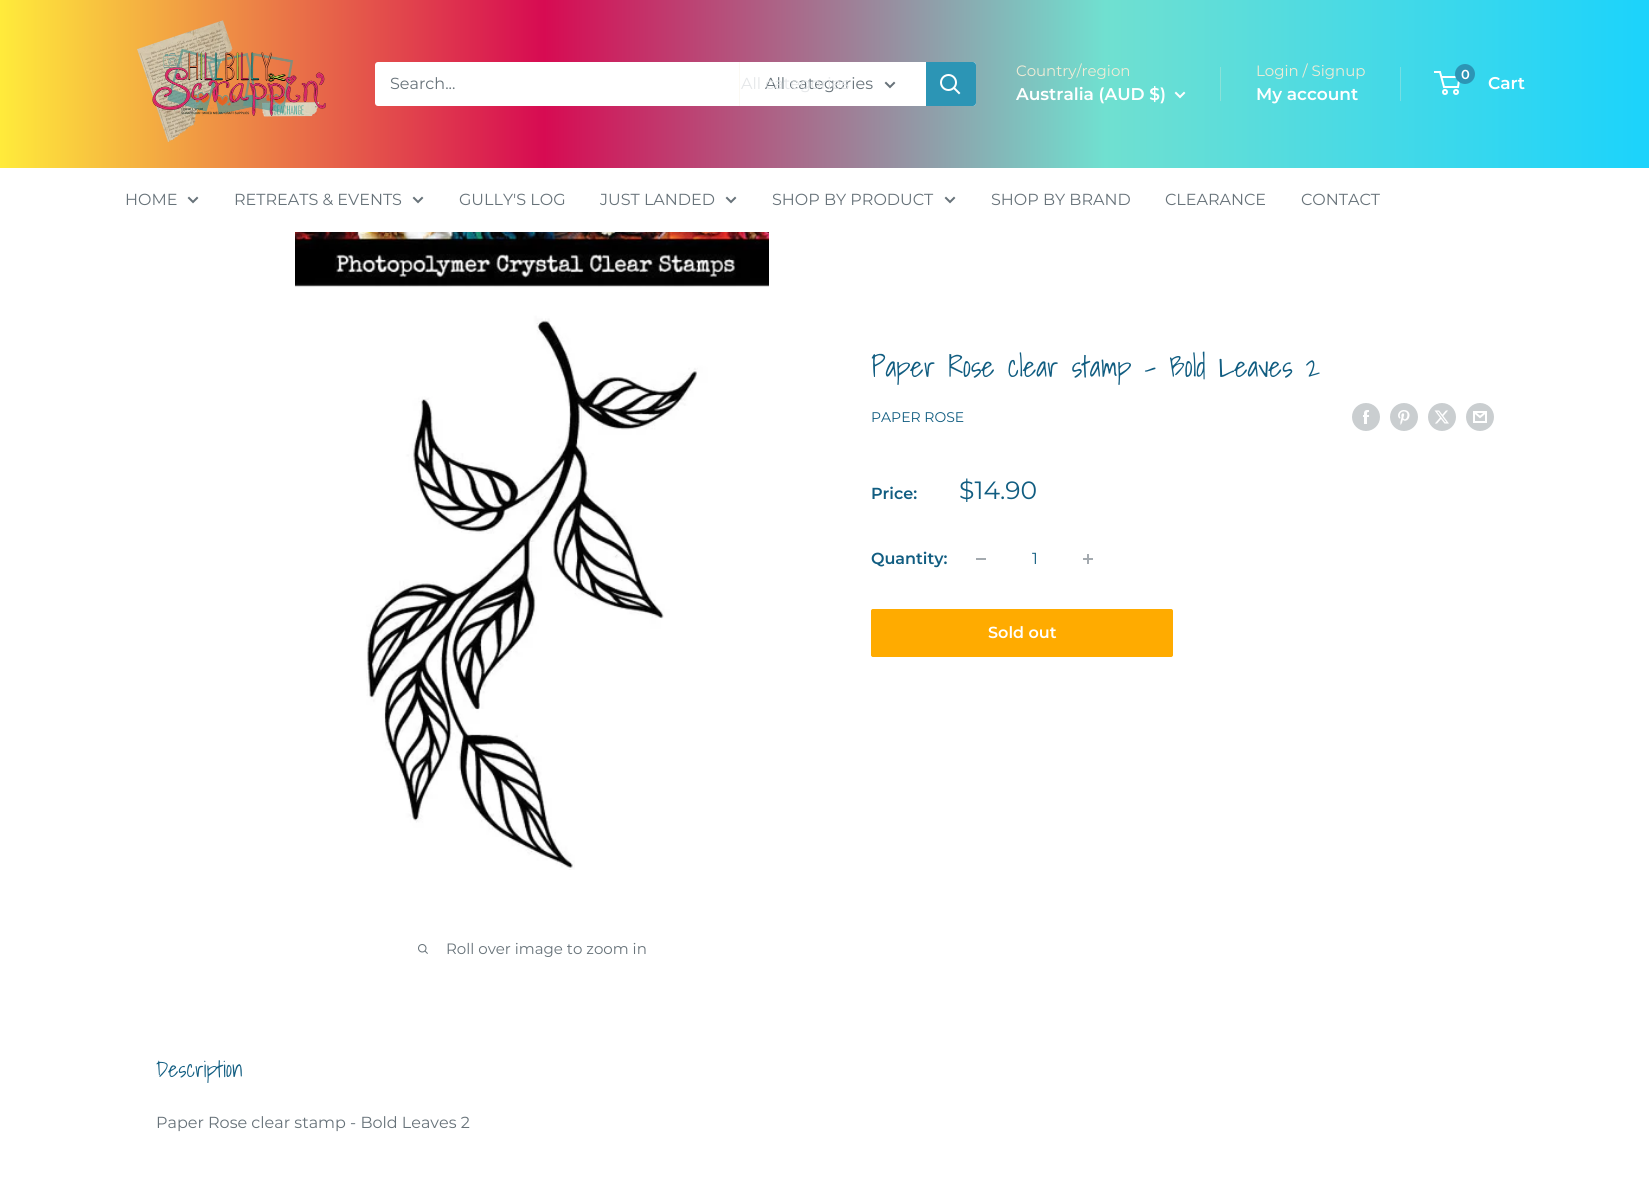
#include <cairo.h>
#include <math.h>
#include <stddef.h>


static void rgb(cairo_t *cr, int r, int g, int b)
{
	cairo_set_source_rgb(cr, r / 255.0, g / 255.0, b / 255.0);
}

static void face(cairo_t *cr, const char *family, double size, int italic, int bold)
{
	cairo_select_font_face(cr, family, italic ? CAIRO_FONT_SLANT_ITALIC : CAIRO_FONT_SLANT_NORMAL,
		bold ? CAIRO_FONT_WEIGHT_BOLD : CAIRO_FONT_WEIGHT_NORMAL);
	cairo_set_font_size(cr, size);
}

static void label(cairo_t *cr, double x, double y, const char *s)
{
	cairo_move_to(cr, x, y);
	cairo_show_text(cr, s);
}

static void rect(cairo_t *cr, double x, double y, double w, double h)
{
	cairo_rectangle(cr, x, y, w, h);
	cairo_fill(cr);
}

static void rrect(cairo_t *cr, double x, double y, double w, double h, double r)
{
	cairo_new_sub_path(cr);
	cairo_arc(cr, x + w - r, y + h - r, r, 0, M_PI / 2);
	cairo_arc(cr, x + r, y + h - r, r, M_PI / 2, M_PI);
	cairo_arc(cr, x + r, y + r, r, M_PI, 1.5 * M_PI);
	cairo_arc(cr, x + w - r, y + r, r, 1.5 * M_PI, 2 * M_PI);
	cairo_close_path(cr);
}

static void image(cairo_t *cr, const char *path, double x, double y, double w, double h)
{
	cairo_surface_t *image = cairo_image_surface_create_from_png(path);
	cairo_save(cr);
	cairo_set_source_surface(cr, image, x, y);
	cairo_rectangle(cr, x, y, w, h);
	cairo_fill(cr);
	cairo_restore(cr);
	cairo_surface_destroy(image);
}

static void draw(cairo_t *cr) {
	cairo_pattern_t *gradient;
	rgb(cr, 255, 255, 255);
	cairo_paint(cr);
	gradient = cairo_pattern_create_linear(1649, 84, 0, 84);
	cairo_pattern_add_color_stop_rgba(gradient, 0, 0.106, 0.827, 0.988, 1);
	cairo_pattern_add_color_stop_rgba(gradient, 0.33, 0.439, 0.878, 0.816, 1);
	cairo_pattern_add_color_stop_rgba(gradient, 0.67, 0.843, 0.043, 0.322, 1);
	cairo_pattern_add_color_stop_rgba(gradient, 1, 1, 0.922, 0.231, 1);
	cairo_set_source(cr, gradient);
	cairo_pattern_destroy(gradient);
	rect(cr, 0, 0, 1649, 168);
	image(cr, "image0.png", 137, 20, 189, 122);
	rgb(cr, 255, 255, 255);
	rrect(cr, 375, 62, 601, 44, 3);
	cairo_fill(cr);
	face(cr, "Montserrat", 16, 0, 0);
	rgb(cr, 103, 114, 121);
	label(cr, 390, 89, "Search...");
	rgb(cr, 251, 249, 243);
	rect(cr, 739, 62, 1, 44);
	rgb(cr, 103, 114, 121);
	label(cr, 765, 89, "All categories");
	rgb(cr, 229, 231, 233);
	label(cr, 741, 89, "All categories");
	cairo_new_path(cr);
	cairo_move_to(cr, 894, 83);
	cairo_line_to(cr, 890, 87);
	cairo_line_to(cr, 886, 83);
	rgb(cr, 103, 114, 121);
	cairo_set_line_cap(cr, CAIRO_LINE_CAP_SQUARE);
	cairo_stroke(cr);
	rgb(cr, 44, 149, 181);
	cairo_new_path(cr);
	cairo_move_to(cr, 926, 62);
	cairo_line_to(cr, 973, 62);
	cairo_curve_to(cr, 974.5, 62, 976, 63.5, 976, 65);
	cairo_line_to(cr, 976, 103);
	cairo_curve_to(cr, 976, 104.5, 974.5, 106, 973, 106);
	cairo_line_to(cr, 926, 106);
	cairo_close_path(cr);
	cairo_fill(cr);
	cairo_new_path(cr);
	cairo_move_to(cr, 959, 93);
	cairo_line_to(cr, 954, 88);
	rgb(cr, 255, 255, 255);
	cairo_stroke(cr);
	cairo_arc(cr, 948.5, 82.5, 7.5, 0, 2 * M_PI);
	cairo_set_line_cap(cr, CAIRO_LINE_CAP_BUTT);
	cairo_stroke(cr);
	face(cr, "Montserrat", 15, 0, 0);
	rgb(cr, 240, 235, 214);
	label(cr, 1016, 76, "Country/region");
	face(cr, "Montserrat SemiBold", 17, 0, 0);
	rgb(cr, 255, 255, 255);
	label(cr, 1016, 100, "Australia (AUD $)");
	cairo_new_path(cr);
	cairo_move_to(cr, 1184, 93);
	cairo_line_to(cr, 1180, 97);
	cairo_line_to(cr, 1176, 93);
	cairo_set_line_cap(cr, CAIRO_LINE_CAP_SQUARE);
	cairo_stroke(cr);
	rgb(cr, 138, 225, 216);
	rect(cr, 1220, 67, 1, 34);
	face(cr, "Montserrat", 15, 0, 0);
	rgb(cr, 240, 235, 214);
	label(cr, 1256, 76, "Login / Signup");
	rgb(cr, 118, 222, 227);
	rect(cr, 1400, 67, 1, 34);
	face(cr, "Montserrat SemiBold", 17, 0, 0);
	rgb(cr, 255, 255, 255);
	label(cr, 1256, 100, "My account");
	cairo_new_path(cr);
	cairo_arc(cr, 1445, 92, 2, 0, 2 * M_PI);
	cairo_set_line_cap(cr, CAIRO_LINE_CAP_BUTT);
	cairo_stroke(cr);
	cairo_arc(cr, 1456, 92, 2, 0, 2 * M_PI);
	cairo_stroke(cr);
	cairo_new_path(cr);
	cairo_move_to(cr, 1441.5, 77);
	cairo_line_to(cr, 1459.5, 77);
	cairo_line_to(cr, 1458, 87);
	cairo_line_to(cr, 1444, 87);
	cairo_line_to(cr, 1440, 72);
	cairo_line_to(cr, 1434, 72);
	cairo_stroke(cr);
	rgb(cr, 44, 149, 181);
	cairo_arc(cr, 1465, 74, 10, 0, 2 * M_PI);
	cairo_fill(cr);
	face(cr, "Montserrat SemiBold", 13, 0, 0);
	rgb(cr, 255, 255, 255);
	label(cr, 1461, 79, "0");
	face(cr, "Montserrat SemiBold", 17, 0, 0);
	label(cr, 1488, 89, "Cart");
	face(cr, "Montserrat", 16, 0, 0);
	rgb(cr, 103, 114, 121);
	label(cr, 125, 205, "HOME");
	cairo_new_path(cr);
	cairo_move_to(cr, 197, 198);
	cairo_line_to(cr, 193, 202);
	cairo_line_to(cr, 189, 198);
	cairo_set_line_cap(cr, CAIRO_LINE_CAP_SQUARE);
	cairo_stroke(cr);
	label(cr, 234, 205, "RETREATS & EVENTS");
	cairo_new_path(cr);
	cairo_move_to(cr, 422, 198);
	cairo_line_to(cr, 418, 202);
	cairo_line_to(cr, 414, 198);
	cairo_stroke(cr);
	label(cr, 459, 205, "GULLY'S LOG");
	label(cr, 600, 205, "JUST LANDED");
	cairo_new_path(cr);
	cairo_move_to(cr, 735, 198);
	cairo_line_to(cr, 731, 202);
	cairo_line_to(cr, 727, 198);
	cairo_stroke(cr);
	label(cr, 772, 205, "SHOP BY PRODUCT");
	cairo_new_path(cr);
	cairo_move_to(cr, 954, 198);
	cairo_line_to(cr, 950, 202);
	cairo_line_to(cr, 946, 198);
	cairo_stroke(cr);
	label(cr, 991, 205, "SHOP BY BRAND");
	label(cr, 1165, 205, "CLEARANCE");
	label(cr, 1301, 205, "CONTACT");
	face(cr, "Shadows Into Light", 29, 0, 0);
	rgb(cr, 17, 93, 129);
	label(cr, 871, 377, "Paper Rose clear stamp - Bold Leaves 2");
	face(cr, "Montserrat", 14, 0, 0);
	label(cr, 871, 422, "PAPER ROSE");
	image(cr, "image1.png", 1352, 403, 28, 28);
	image(cr, "image2.png", 1390, 403, 28, 28);
	image(cr, "image3.png", 1428, 403, 28, 28);
	image(cr, "image4.png", 1466, 403, 28, 28);
	face(cr, "Montserrat SemiBold", 16, 0, 0);
	label(cr, 871, 499, "Price:");
	face(cr, "Montserrat", 25, 0, 0);
	label(cr, 959, 499, "$14.90");
	face(cr, "Montserrat SemiBold", 16, 0, 0);
	label(cr, 871, 564, "Quantity:");
	rgb(cr, 164, 170, 175);
	rect(cr, 976, 558, 10, 2);
	face(cr, "Montserrat", 16, 0, 0);
	rgb(cr, 17, 93, 129);
	label(cr, 1032, 564, "1");
	image(cr, "image5.png", 1083, 554, 10, 10);
	rgb(cr, 255, 171, 0);
	rrect(cr, 871.5, 609.5, 301, 47, 1.5);
	cairo_fill_preserve(cr);
	cairo_set_line_width(cr, 1);
	cairo_set_line_cap(cr, CAIRO_LINE_CAP_BUTT);
	cairo_stroke(cr);
	face(cr, "Montserrat SemiBold", 16, 0, 0);
	rgb(cr, 255, 255, 255);
	label(cr, 988, 638, "Sold out");
	image(cr, "image6.png", 295, 232, 474, 638);
	image(cr, "image7.png", 418, 944, 10, 10);
	face(cr, "Montserrat", 15, 0, 0);
	rgb(cr, 103, 114, 121);
	label(cr, 446, 954, "Roll over image to zoom in");
	face(cr, "Shadows Into Light", 22, 0, 0);
	rgb(cr, 17, 93, 129);
	label(cr, 156, 1077, "Description");
	face(cr, "Montserrat", 16, 0, 0);
	rgb(cr, 103, 114, 121);
	label(cr, 156, 1128, "Paper Rose clear stamp - Bold Leaves 2");
}

int main(void) {
	cairo_surface_t *surface = cairo_image_surface_create(CAIRO_FORMAT_RGB24, 1649, 1192);
	cairo_t *cr = cairo_create(surface);
	cairo_font_options_t *options = cairo_font_options_create();
	cairo_font_options_set_hint_metrics(options, CAIRO_HINT_METRICS_OFF);
	cairo_font_options_set_hint_style(options, CAIRO_HINT_STYLE_NONE);
	cairo_set_font_options(cr, options);
	cairo_set_miter_limit(cr, 4);
	draw(cr);
	cairo_surface_write_to_png(surface, "render.png");
	cairo_font_options_destroy(options);
	cairo_destroy(cr);
	cairo_surface_destroy(surface);
	return 0;
}
